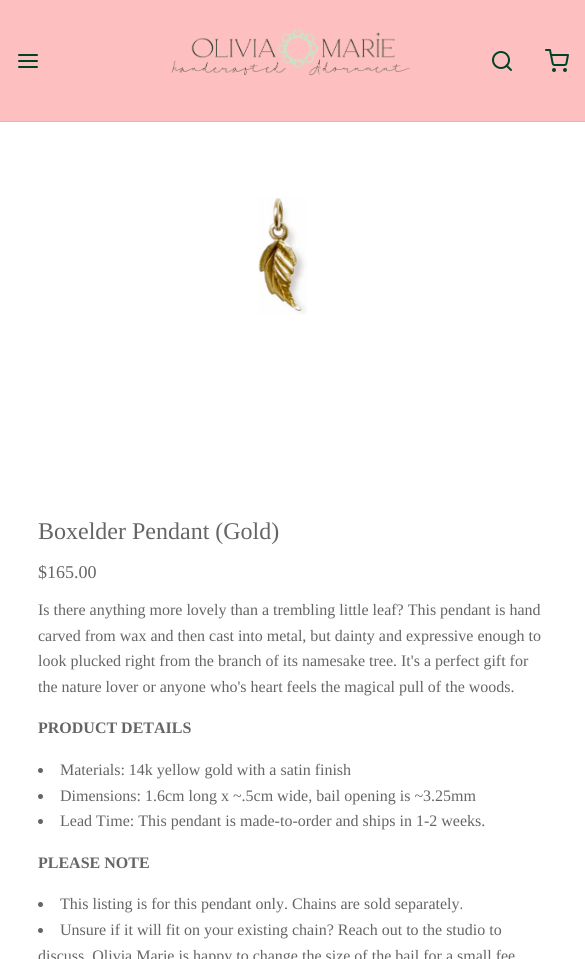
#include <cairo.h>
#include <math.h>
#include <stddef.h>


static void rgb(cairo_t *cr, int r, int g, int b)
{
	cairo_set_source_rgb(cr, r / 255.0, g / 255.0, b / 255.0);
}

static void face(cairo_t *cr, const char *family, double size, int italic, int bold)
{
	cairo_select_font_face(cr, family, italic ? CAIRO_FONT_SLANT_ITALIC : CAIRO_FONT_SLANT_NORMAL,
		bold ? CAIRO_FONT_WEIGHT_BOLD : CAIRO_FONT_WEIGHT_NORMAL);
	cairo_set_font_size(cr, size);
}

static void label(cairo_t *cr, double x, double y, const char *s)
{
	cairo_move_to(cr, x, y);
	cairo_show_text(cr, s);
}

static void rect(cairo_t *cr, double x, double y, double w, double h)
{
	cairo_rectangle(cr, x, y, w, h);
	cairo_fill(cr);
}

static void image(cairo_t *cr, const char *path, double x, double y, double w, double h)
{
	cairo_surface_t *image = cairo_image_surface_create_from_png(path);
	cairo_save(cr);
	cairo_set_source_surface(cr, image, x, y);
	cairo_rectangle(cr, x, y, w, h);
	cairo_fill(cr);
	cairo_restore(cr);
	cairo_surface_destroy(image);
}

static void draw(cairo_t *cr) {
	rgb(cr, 255, 255, 255);
	cairo_paint(cr);
	rgb(cr, 253, 191, 191);
	rect(cr, 0, 0, 585, 121);
	rgb(cr, 228, 179, 176);
	rect(cr, 0, 121, 585, 1);
	cairo_new_path(cr);
	cairo_move_to(cr, 19, 61);
	cairo_line_to(cr, 37, 61);
	cairo_move_to(cr, 19, 55);
	cairo_line_to(cr, 37, 55);
	cairo_move_to(cr, 19, 67);
	cairo_line_to(cr, 37, 67);
	rgb(cr, 0, 66, 37);
	cairo_set_line_cap(cr, CAIRO_LINE_CAP_ROUND);
	cairo_set_line_join(cr, CAIRO_LINE_JOIN_ROUND);
	cairo_stroke(cr);
	image(cr, "image0.png", 172, 29, 238, 47);
	cairo_arc(cr, 501, 60, 8, 0, 2 * M_PI);
	cairo_set_line_cap(cr, CAIRO_LINE_CAP_BUTT);
	cairo_set_line_join(cr, CAIRO_LINE_JOIN_MITER);
	cairo_stroke(cr);
	cairo_new_path(cr);
	cairo_move_to(cr, 511, 70);
	cairo_line_to(cr, 506.5, 65.5);
	cairo_set_line_cap(cr, CAIRO_LINE_CAP_ROUND);
	cairo_set_line_join(cr, CAIRO_LINE_JOIN_ROUND);
	cairo_stroke(cr);
	image(cr, "image1.png", 545, 49, 24, 23);
	image(cr, "image2.png", 258, 197, 49, 118);
	face(cr, "Liberation Serif", 24, 0, 0);
	rgb(cr, 101, 101, 101);
	label(cr, 38, 539, "Boxelder Pendant (Gold)");
	face(cr, "Liberation Serif", 18, 0, 0);
	label(cr, 38, 578, "$165.00");
	face(cr, "Liberation Serif", 16, 0, 0);
	label(cr, 38, 615, "Is there anything more lovely than a trembling little leaf? This pendant is hand");
	label(cr, 38, 641, "carved from wax and then cast into metal, but dainty and expressive enough to");
	label(cr, 38, 666, "look plucked right from the branch of its namesake tree. It's a perfect gift for");
	label(cr, 38, 692, "the nature lover or anyone who's heart feels the magical pull of the woods.");
	face(cr, "Liberation Serif", 16, 0, 1);
	label(cr, 38, 733, "PRODUCT DETAILS");
	cairo_new_path(cr);
	cairo_arc(cr, 40.5, 770.5, 2.5, 0, 2 * M_PI);
	cairo_fill(cr);
	face(cr, "Liberation Serif", 16, 0, 0);
	label(cr, 60, 775, "Materials: 14k yellow gold with a satin finish");
	cairo_new_path(cr);
	cairo_arc(cr, 40.5, 796.5, 2.5, 0, 2 * M_PI);
	cairo_fill(cr);
	label(cr, 60, 801, "Dimensions: 1.6cm long x ~.5cm wide, bail opening is ~3.25mm");
	cairo_new_path(cr);
	cairo_arc(cr, 40.5, 821.5, 2.5, 0, 2 * M_PI);
	cairo_fill(cr);
	label(cr, 60, 826, "Lead Time: This pendant is made-to-order and ships in 1-2 weeks.");
	face(cr, "Liberation Serif", 16, 0, 1);
	label(cr, 38, 868, "PLEASE NOTE");
	cairo_new_path(cr);
	cairo_arc(cr, 40.5, 904.5, 2.5, 0, 2 * M_PI);
	cairo_fill(cr);
	face(cr, "Liberation Serif", 16, 0, 0);
	label(cr, 60, 909, "This listing is for this pendant only. Chains are sold separately.");
	cairo_new_path(cr);
	cairo_arc(cr, 40.5, 930.5, 2.5, 0, 2 * M_PI);
	cairo_fill(cr);
	label(cr, 60, 935, "Unsure if it will fit on your existing chain? Reach out to the studio to");
	label(cr, 38, 961, "discuss. Olivia Marie is happy to change the size of the bail for a small fee");
}

int main(void) {
	cairo_surface_t *surface = cairo_image_surface_create(CAIRO_FORMAT_RGB24, 585, 959);
	cairo_t *cr = cairo_create(surface);
	cairo_font_options_t *options = cairo_font_options_create();
	cairo_font_options_set_hint_metrics(options, CAIRO_HINT_METRICS_OFF);
	cairo_font_options_set_hint_style(options, CAIRO_HINT_STYLE_NONE);
	cairo_set_font_options(cr, options);
	cairo_set_miter_limit(cr, 4);
	draw(cr);
	cairo_surface_write_to_png(surface, "render.png");
	cairo_font_options_destroy(options);
	cairo_destroy(cr);
	cairo_surface_destroy(surface);
	return 0;
}
